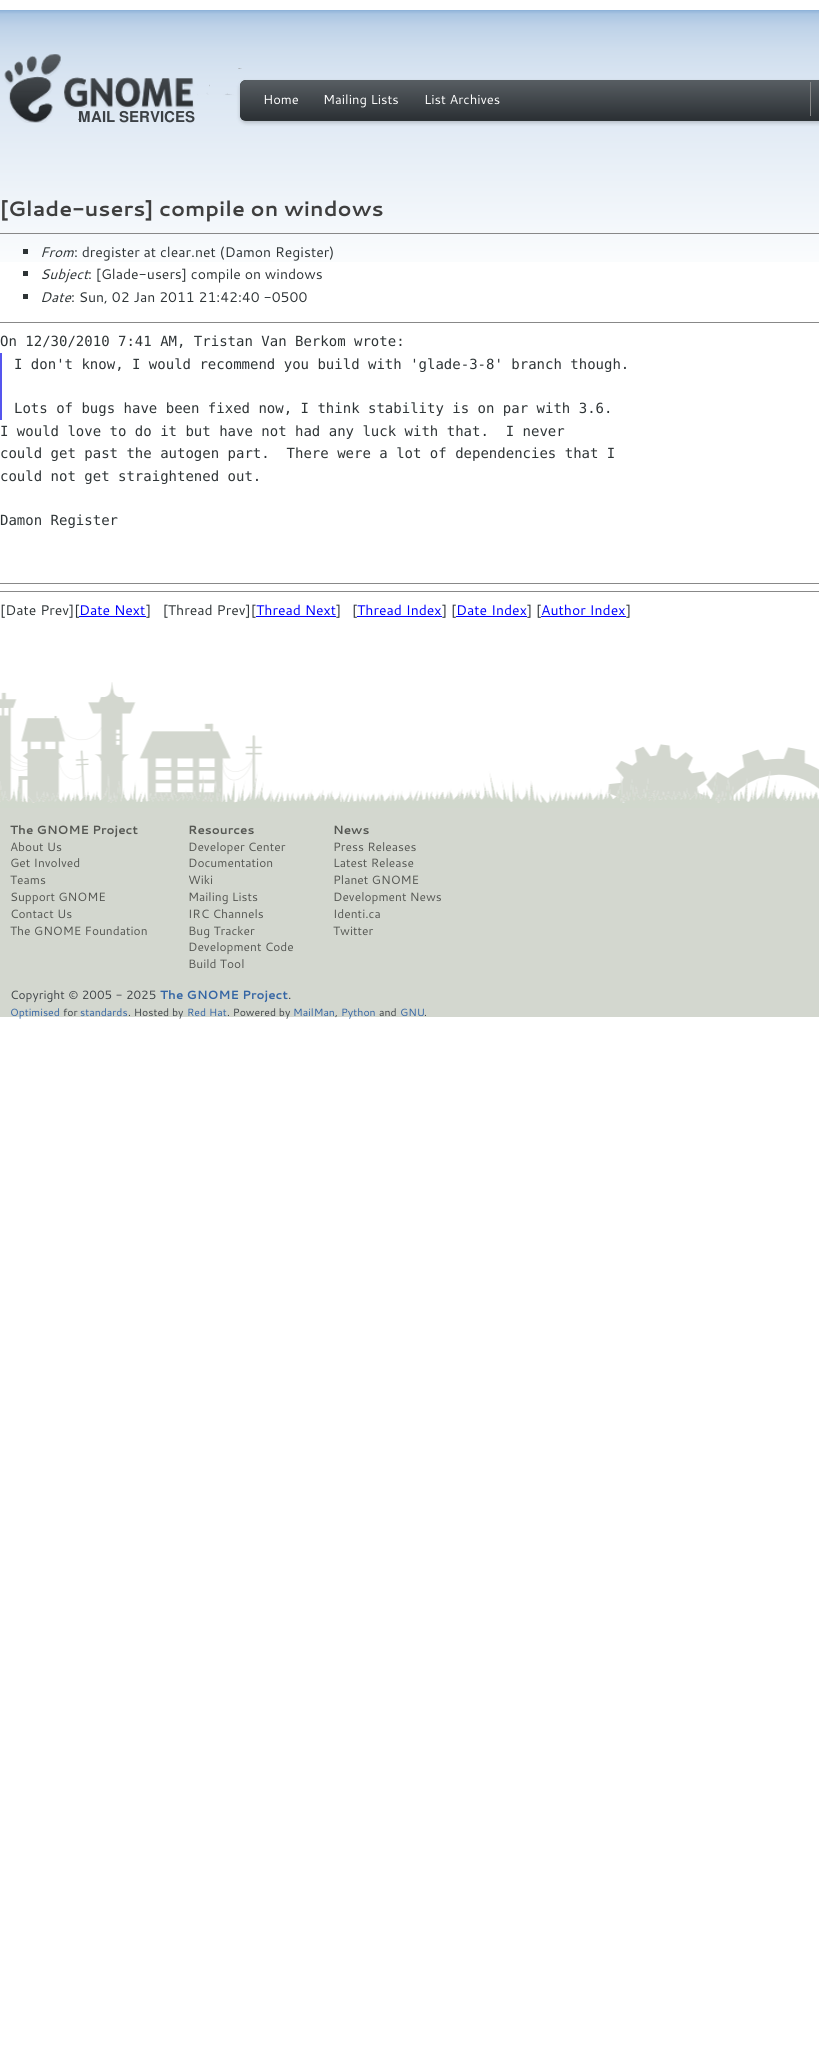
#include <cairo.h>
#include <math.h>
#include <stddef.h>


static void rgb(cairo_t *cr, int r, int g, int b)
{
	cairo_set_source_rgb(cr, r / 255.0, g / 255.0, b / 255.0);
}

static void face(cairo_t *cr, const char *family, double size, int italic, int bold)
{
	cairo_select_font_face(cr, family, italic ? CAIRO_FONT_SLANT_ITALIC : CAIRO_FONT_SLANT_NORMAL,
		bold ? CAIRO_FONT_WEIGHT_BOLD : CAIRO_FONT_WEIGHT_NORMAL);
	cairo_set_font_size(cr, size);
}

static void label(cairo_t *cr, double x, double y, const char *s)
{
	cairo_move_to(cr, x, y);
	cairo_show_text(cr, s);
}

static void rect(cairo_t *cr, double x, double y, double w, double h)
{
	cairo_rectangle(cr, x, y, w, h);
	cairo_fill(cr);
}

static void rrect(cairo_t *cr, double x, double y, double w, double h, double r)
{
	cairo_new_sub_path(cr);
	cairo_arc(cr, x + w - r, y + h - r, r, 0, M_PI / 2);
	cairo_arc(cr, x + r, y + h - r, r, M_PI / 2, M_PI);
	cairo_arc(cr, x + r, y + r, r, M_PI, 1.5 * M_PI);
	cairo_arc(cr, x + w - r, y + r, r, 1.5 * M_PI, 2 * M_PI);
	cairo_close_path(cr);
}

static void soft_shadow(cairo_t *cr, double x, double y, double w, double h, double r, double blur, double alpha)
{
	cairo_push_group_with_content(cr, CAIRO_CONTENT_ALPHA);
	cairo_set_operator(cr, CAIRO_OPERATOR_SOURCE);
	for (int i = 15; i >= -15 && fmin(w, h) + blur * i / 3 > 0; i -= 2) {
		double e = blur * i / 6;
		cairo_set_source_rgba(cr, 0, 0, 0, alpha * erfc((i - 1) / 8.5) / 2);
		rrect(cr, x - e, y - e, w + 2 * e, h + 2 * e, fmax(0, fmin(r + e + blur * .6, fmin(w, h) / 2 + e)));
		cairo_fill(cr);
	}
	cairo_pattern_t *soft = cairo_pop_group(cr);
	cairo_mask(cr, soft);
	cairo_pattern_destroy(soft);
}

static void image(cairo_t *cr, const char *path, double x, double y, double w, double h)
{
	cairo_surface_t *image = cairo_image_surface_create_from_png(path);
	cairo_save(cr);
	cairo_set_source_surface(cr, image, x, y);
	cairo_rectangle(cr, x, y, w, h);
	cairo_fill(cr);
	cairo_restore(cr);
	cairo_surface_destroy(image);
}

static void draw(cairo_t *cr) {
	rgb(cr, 255, 255, 255);
	cairo_paint(cr);
	image(cr, "image0.png", 0, 10, 819, 252);
	image(cr, "image1.png", 4, 54, 238, 69);
	rgb(cr, 0, 0, 0);
	soft_shadow(cr, 240, 82, 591, 41, 6, 2, 0.2);
	rgb(cr, 46, 52, 54);
	rrect(cr, 240, 80, 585, 41, 6);
	cairo_fill(cr);
	image(cr, "image2.png", 240, 80, 579, 40);
	face(cr, "Cantarell", 13, 0, 0);
	rgb(cr, 255, 255, 255);
	label(cr, 263, 104, "Home");
	label(cr, 323, 104, "Mailing Lists");
	label(cr, 424, 104, "List Archives");
	rgb(cr, 136, 136, 136);
	rect(cr, 810, 82, 1, 34);
	face(cr, "Cantarell", 21, 0, 1);
	rgb(cr, 63, 63, 63);
	label(cr, 0, 216, "[Glade-users] compile on windows");
	rgb(cr, 136, 136, 136);
	rect(cr, 0, 233, 819, 1);
	rgb(cr, 46, 52, 54);
	rect(cr, 23, 249, 5, 5);
	face(cr, "Cantarell", 14, 1, 0);
	label(cr, 40, 257, "From");
	face(cr, "Cantarell", 14, 0, 0);
	label(cr, 74, 257, ": dregister at clear.net (Damon Register)");
	rect(cr, 23, 271, 5, 5);
	face(cr, "Cantarell", 14, 1, 0);
	label(cr, 40, 279, "Subject");
	face(cr, "Cantarell", 14, 0, 0);
	label(cr, 88, 279, ": [Glade-users] compile on windows");
	rect(cr, 23, 294, 5, 5);
	face(cr, "Cantarell", 14, 1, 0);
	label(cr, 40, 302, "Date");
	face(cr, "Cantarell", 14, 0, 0);
	label(cr, 71, 302, ": Sun, 02 Jan 2011 21:42:40 -0500");
	rgb(cr, 136, 136, 136);
	rect(cr, 0, 322, 819, 1);
	face(cr, "DejaVu Sans Mono", 14, 0, 0);
	rgb(cr, 46, 52, 54);
	label(cr, 0, 346, "On 12/30/2010 7:41 AM, Tristan Van Berkom wrote:");
	rgb(cr, 85, 85, 238);
	rect(cr, 0, 353, 2, 67);
	rgb(cr, 46, 52, 54);
	label(cr, 14, 369, "I don't know, I would recommend you build with 'glade-3-8' branch though.");
	label(cr, 14, 413, "Lots of bugs have been fixed now, I think stability is on par with 3.6.");
	label(cr, 0, 436, "I would love to do it but have not had any luck with that.  I never");
	label(cr, 0, 458, "could get past the autogen part.  There were a lot of dependencies that I");
	label(cr, 0, 481, "could not get straightened out.");
	label(cr, 0, 525, "Damon Register");
	rgb(cr, 136, 136, 136);
	rect(cr, 0, 583, 819, 1);
	rect(cr, 0, 591, 819, 1);
	face(cr, "Cantarell", 14, 0, 0);
	rgb(cr, 46, 52, 54);
	label(cr, 0, 615, "[Date Prev][");
	rgb(cr, 0, 0, 255);
	label(cr, 79, 615, "Date Next");
	rect(cr, 79, 616, 67, 1);
	rgb(cr, 46, 52, 54);
	label(cr, 146, 615, "]   [Thread Prev][");
	rgb(cr, 0, 0, 255);
	label(cr, 256, 615, "Thread Next");
	rect(cr, 256, 616, 80, 1);
	rgb(cr, 46, 52, 54);
	label(cr, 336, 615, "]");
	label(cr, 352, 615, "[");
	rgb(cr, 0, 0, 255);
	label(cr, 357, 615, "Thread Index");
	rect(cr, 357, 616, 85, 1);
	rgb(cr, 46, 52, 54);
	label(cr, 442, 615, "] [");
	rgb(cr, 0, 0, 255);
	label(cr, 456, 615, "Date Index");
	rect(cr, 456, 616, 71, 1);
	rgb(cr, 46, 52, 54);
	label(cr, 527, 615, "] [");
	rgb(cr, 0, 0, 255);
	label(cr, 541, 615, "Author Index");
	rect(cr, 541, 616, 85, 1);
	rgb(cr, 46, 52, 54);
	label(cr, 626, 615, "]");
	image(cr, "image3.png", 0, 682, 819, 120);
	image(cr, "image4.png", 0, 771, 819, 37);
	rgb(cr, 211, 215, 207);
	rect(cr, 0, 808, 819, 209);
	face(cr, "Cantarell", 12, 0, 1);
	rgb(cr, 85, 87, 83);
	label(cr, 10, 834, "The GNOME Project");
	face(cr, "Cantarell", 12, 0, 0);
	label(cr, 10, 851, "About Us");
	label(cr, 10, 867, "Get Involved");
	label(cr, 10, 884, "Teams");
	label(cr, 10, 901, "Support GNOME");
	label(cr, 10, 918, "Contact Us");
	label(cr, 10, 935, "The GNOME Foundation");
	face(cr, "Cantarell", 12, 0, 1);
	label(cr, 188, 834, "Resources");
	face(cr, "Cantarell", 12, 0, 0);
	label(cr, 188, 851, "Developer Center");
	label(cr, 188, 867, "Documentation");
	label(cr, 188, 884, "Wiki");
	label(cr, 188, 901, "Mailing Lists");
	label(cr, 188, 918, "IRC Channels");
	label(cr, 188, 935, "Bug Tracker");
	label(cr, 188, 951, "Development Code");
	label(cr, 188, 968, "Build Tool");
	face(cr, "Cantarell", 12, 0, 1);
	label(cr, 333, 834, "News");
	face(cr, "Cantarell", 12, 0, 0);
	label(cr, 333, 851, "Press Releases");
	label(cr, 333, 867, "Latest Release");
	label(cr, 333, 884, "Planet GNOME");
	label(cr, 333, 901, "Development News");
	label(cr, 333, 918, "Identi.ca");
	label(cr, 333, 935, "Twitter");
	rgb(cr, 63, 68, 72);
	label(cr, 10, 999, "Copyright © 2005 - 2025");
	face(cr, "Cantarell", 12, 0, 1);
	rgb(cr, 52, 101, 164);
	label(cr, 160, 999, "The GNOME Project");
	face(cr, "Cantarell", 12, 0, 0);
	rgb(cr, 63, 68, 72);
	label(cr, 288, 999, ".");
	face(cr, "Cantarell", 10.5, 0, 0);
	rgb(cr, 52, 101, 164);
	label(cr, 10, 1016, "Optimised");
	rgb(cr, 63, 68, 72);
	label(cr, 63, 1016, "for");
	rgb(cr, 52, 101, 164);
	label(cr, 80, 1016, "standards");
	rgb(cr, 63, 68, 72);
	label(cr, 128, 1016, ". Hosted by");
	rgb(cr, 52, 101, 164);
	label(cr, 187, 1016, "Red Hat");
	rgb(cr, 63, 68, 72);
	label(cr, 227, 1016, ". Powered by");
	rgb(cr, 52, 101, 164);
	label(cr, 293, 1016, "MailMan");
	rgb(cr, 63, 68, 72);
	label(cr, 335, 1016, ",");
	rgb(cr, 52, 101, 164);
	label(cr, 341, 1016, "Python");
	rgb(cr, 63, 68, 72);
	label(cr, 379, 1016, "and");
	rgb(cr, 52, 101, 164);
	label(cr, 400, 1016, "GNU");
	rgb(cr, 63, 68, 72);
	label(cr, 424, 1016, ".");
}

int main(void) {
	cairo_surface_t *surface = cairo_image_surface_create(CAIRO_FORMAT_RGB24, 819, 2054);
	cairo_t *cr = cairo_create(surface);
	cairo_font_options_t *options = cairo_font_options_create();
	cairo_font_options_set_hint_metrics(options, CAIRO_HINT_METRICS_OFF);
	cairo_font_options_set_hint_style(options, CAIRO_HINT_STYLE_NONE);
	cairo_set_font_options(cr, options);
	cairo_set_miter_limit(cr, 4);
	draw(cr);
	cairo_surface_write_to_png(surface, "render.png");
	cairo_font_options_destroy(options);
	cairo_destroy(cr);
	cairo_surface_destroy(surface);
	return 0;
}
